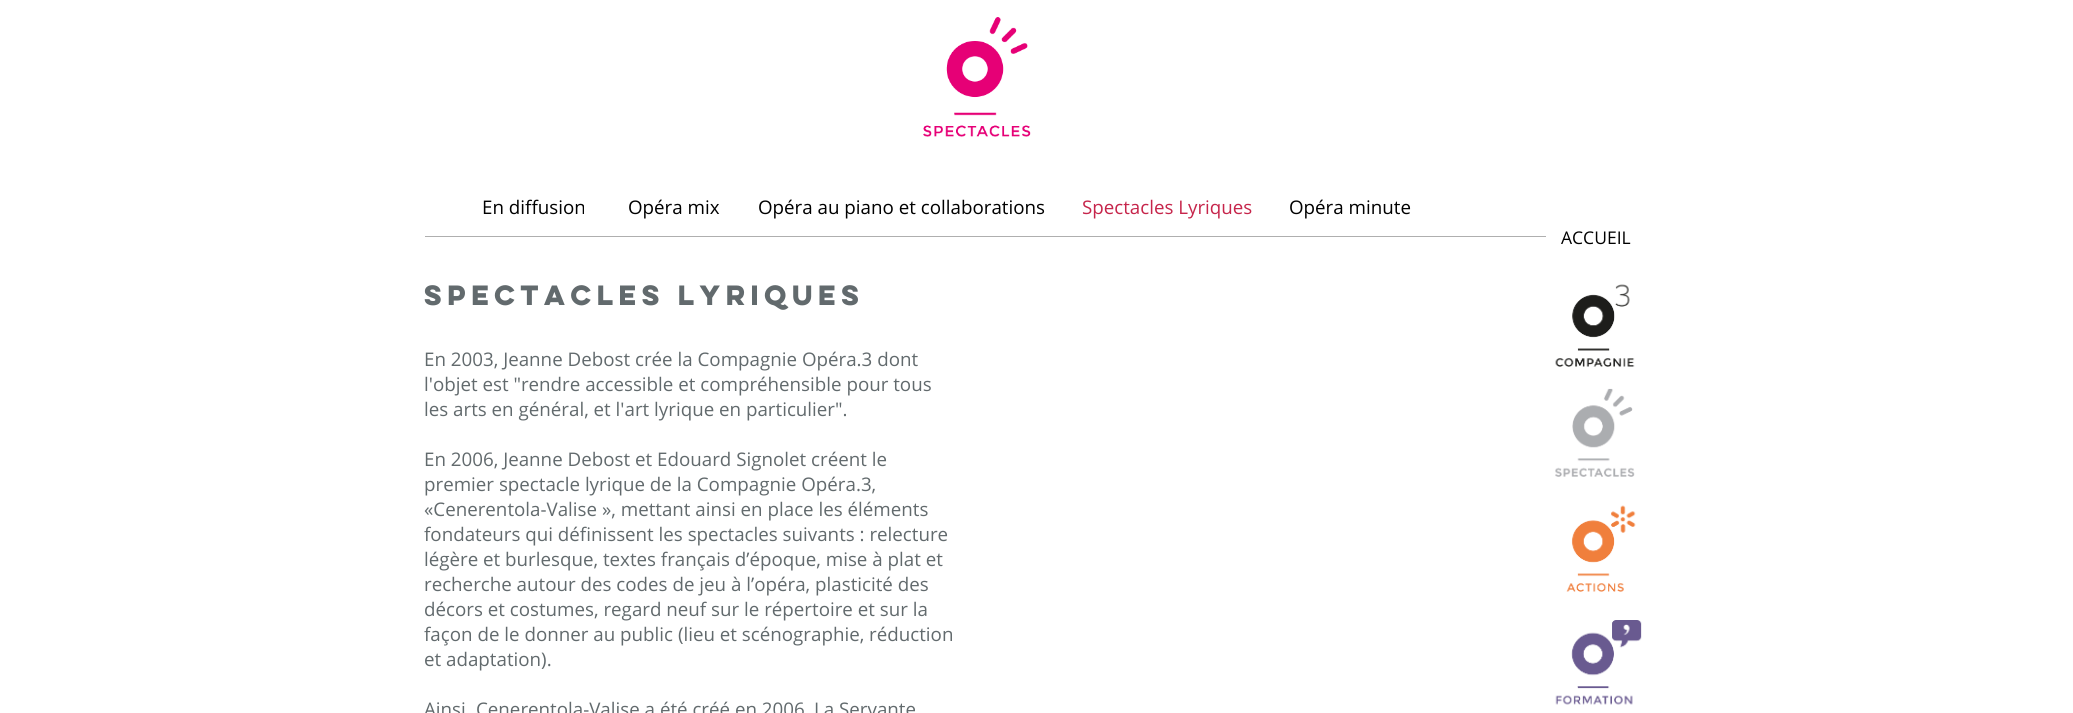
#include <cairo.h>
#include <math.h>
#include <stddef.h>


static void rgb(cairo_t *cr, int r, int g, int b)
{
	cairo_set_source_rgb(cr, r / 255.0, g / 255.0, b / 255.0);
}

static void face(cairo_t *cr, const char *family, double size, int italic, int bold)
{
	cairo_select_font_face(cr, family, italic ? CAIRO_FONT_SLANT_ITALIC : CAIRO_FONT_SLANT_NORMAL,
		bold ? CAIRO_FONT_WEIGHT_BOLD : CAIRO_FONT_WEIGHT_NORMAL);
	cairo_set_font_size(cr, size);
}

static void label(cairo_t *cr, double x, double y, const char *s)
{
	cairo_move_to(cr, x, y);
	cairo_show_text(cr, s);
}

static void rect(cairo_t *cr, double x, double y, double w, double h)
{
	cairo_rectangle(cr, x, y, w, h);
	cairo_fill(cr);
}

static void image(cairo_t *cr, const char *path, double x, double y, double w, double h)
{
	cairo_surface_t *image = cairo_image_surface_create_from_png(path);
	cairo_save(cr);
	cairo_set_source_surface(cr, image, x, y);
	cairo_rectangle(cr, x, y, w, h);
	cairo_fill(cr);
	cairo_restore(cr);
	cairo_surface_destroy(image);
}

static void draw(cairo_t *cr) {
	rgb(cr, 255, 255, 255);
	cairo_paint(cr);
	image(cr, "image0.png", 923, 17, 108, 120);
	face(cr, "Open Sans", 18.75, 0, 0);
	rgb(cr, 0, 0, 0);
	label(cr, 482, 214, "En diffusion");
	label(cr, 628, 214, "Opéra mix");
	label(cr, 758, 214, "Opéra au piano et collaborations");
	rgb(cr, 198, 37, 75);
	label(cr, 1082, 214, "Spectacles Lyriques");
	rgb(cr, 0, 0, 0);
	label(cr, 1289, 214, "Opéra minute");
	face(cr, "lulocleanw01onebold", 25, 0, 1);
	rgb(cr, 98, 106, 109);
	label(cr, 424, 305, "Spectacles lyriques");
	image(cr, "image1.png", 1555, 284, 80, 83);
	face(cr, "Open Sans", 18.75, 0, 0);
	label(cr, 424, 366, "En 2003, Jeanne Debost crée la Compagnie Opéra.3 dont");
	label(cr, 424, 391, "l'objet est \"rendre accessible et compréhensible pour tous");
	label(cr, 424, 416, "les arts en général, et l'art lyrique en particulier\".");
	label(cr, 424, 466, "En 2006, Jeanne Debost et Edouard Signolet créent le");
	label(cr, 424, 491, "premier spectacle lyrique de la Compagnie Opéra.3,");
	label(cr, 424, 516, "«Cenerentola-Valise », mettant ainsi en place les éléments");
	label(cr, 424, 541, "fondateurs qui définissent les spectacles suivants : relecture");
	label(cr, 424, 566, "légère et burlesque, textes français d’époque, mise à plat et");
	label(cr, 424, 591, "recherche autour des codes de jeu à l’opéra, plasticité des");
	label(cr, 424, 616, "décors et costumes, regard neuf sur le répertoire et sur la");
	label(cr, 424, 641, "façon de le donner au public (lieu et scénographie, réduction");
	label(cr, 424, 666, "et adaptation).");
	label(cr, 424, 716, "Ainsi");
	label(cr, 476, 716, "Cenerentola-Valise a été créé en 2006");
	label(cr, 814, 716, "La Servante");
	image(cr, "image2.png", 1555, 388, 80, 89);
	image(cr, "image3.png", 1566, 505, 70, 87);
	image(cr, "image4.png", 1555, 620, 87, 85);
	rgb(cr, 175, 175, 175);
	rect(cr, 425, 236, 1121, 1);
	face(cr, "Open Sans", 17.5, 0, 0);
	rgb(cr, 0, 0, 0);
	label(cr, 1561, 244, "ACCUEIL");
}

int main(void) {
	cairo_surface_t *surface = cairo_image_surface_create(CAIRO_FORMAT_RGB24, 2073, 713);
	cairo_t *cr = cairo_create(surface);
	cairo_font_options_t *options = cairo_font_options_create();
	cairo_font_options_set_hint_metrics(options, CAIRO_HINT_METRICS_OFF);
	cairo_font_options_set_hint_style(options, CAIRO_HINT_STYLE_NONE);
	cairo_set_font_options(cr, options);
	cairo_set_miter_limit(cr, 4);
	draw(cr);
	cairo_surface_write_to_png(surface, "render.png");
	cairo_font_options_destroy(options);
	cairo_destroy(cr);
	cairo_surface_destroy(surface);
	return 0;
}
